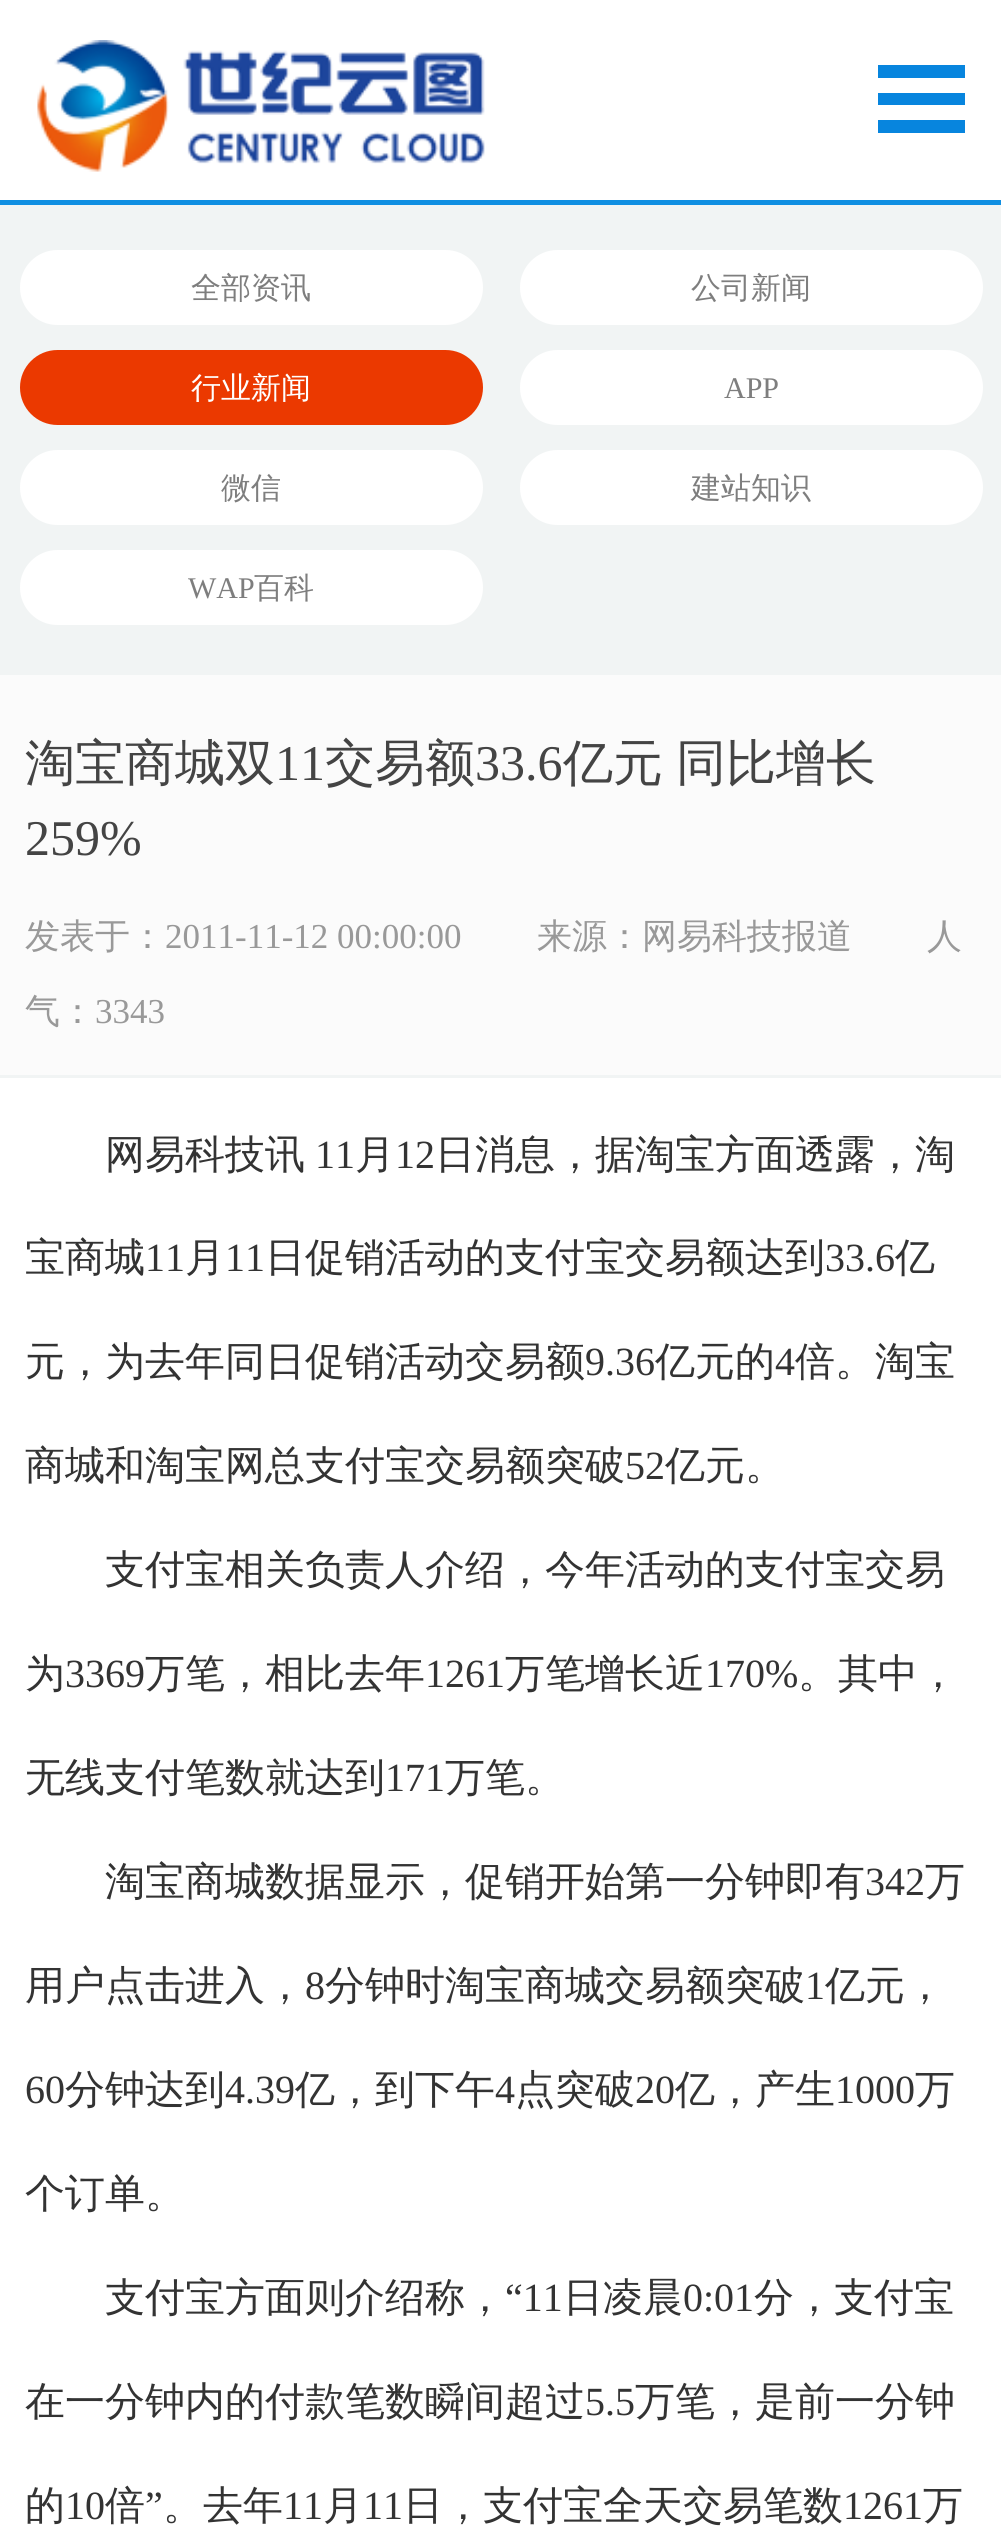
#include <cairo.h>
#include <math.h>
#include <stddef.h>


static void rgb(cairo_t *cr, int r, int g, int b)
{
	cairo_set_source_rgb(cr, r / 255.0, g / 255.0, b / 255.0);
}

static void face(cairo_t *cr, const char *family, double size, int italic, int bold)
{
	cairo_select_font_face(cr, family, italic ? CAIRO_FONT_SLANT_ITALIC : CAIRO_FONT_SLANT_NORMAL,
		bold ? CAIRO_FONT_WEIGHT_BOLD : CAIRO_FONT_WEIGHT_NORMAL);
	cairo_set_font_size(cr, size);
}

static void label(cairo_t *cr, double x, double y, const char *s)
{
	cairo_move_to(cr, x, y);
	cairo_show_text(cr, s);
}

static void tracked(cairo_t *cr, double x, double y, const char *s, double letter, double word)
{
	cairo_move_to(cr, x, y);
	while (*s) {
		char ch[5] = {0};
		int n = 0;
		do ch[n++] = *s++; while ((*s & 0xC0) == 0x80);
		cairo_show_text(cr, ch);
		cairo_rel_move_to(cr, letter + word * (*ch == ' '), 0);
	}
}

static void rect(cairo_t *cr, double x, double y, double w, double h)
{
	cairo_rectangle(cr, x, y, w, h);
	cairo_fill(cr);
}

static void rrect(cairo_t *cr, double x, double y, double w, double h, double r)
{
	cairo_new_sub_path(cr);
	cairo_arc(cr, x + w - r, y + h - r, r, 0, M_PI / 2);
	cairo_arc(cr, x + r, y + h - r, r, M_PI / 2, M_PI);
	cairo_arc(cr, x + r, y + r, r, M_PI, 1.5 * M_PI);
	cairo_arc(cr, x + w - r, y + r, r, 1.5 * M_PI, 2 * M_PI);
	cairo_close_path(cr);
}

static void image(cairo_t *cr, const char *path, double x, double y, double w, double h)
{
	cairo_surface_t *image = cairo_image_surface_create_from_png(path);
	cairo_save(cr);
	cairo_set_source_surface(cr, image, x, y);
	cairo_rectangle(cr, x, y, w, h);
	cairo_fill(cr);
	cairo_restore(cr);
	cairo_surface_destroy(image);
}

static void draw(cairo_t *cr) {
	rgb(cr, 241, 244, 244);
	cairo_paint(cr);
	rgb(cr, 255, 255, 255);
	rect(cr, 0, 0, 1001, 200);
	rgb(cr, 16, 143, 226);
	rect(cr, 0, 200, 1001, 5);
	image(cr, "image0.png", 37, 40, 448, 132);
	rgb(cr, 7, 133, 222);
	rect(cr, 878, 65, 87, 13);
	rect(cr, 878, 93, 87, 12);
	rect(cr, 878, 120, 87, 13);
	rgb(cr, 255, 255, 255);
	rrect(cr, 20, 250, 463, 75, 37.5);
	cairo_fill(cr);
	face(cr, "WenQuanYi Zen Hei Medium", 30, 0, 0);
	rgb(cr, 126, 126, 126);
	label(cr, 191, 298, "全部资讯");
	rgb(cr, 255, 255, 255);
	rrect(cr, 520, 250, 463, 75, 37.5);
	cairo_fill(cr);
	rgb(cr, 126, 126, 126);
	label(cr, 691, 298, "公司新闻");
	rgb(cr, 235, 57, 0);
	rrect(cr, 20, 350, 463, 75, 37.5);
	cairo_fill(cr);
	rgb(cr, 255, 255, 255);
	label(cr, 191, 398, "行业新闻");
	rrect(cr, 520, 350, 463, 75, 37.5);
	cairo_fill(cr);
	face(cr, "Liberation Serif", 30, 0, 0);
	rgb(cr, 126, 126, 126);
	label(cr, 724, 398, "APP");
	rgb(cr, 255, 255, 255);
	rrect(cr, 20, 450, 463, 75, 37.5);
	cairo_fill(cr);
	face(cr, "WenQuanYi Zen Hei Medium", 30, 0, 0);
	rgb(cr, 126, 126, 126);
	label(cr, 221, 498, "微信");
	rgb(cr, 255, 255, 255);
	rrect(cr, 520, 450, 463, 75, 37.5);
	cairo_fill(cr);
	rgb(cr, 126, 126, 126);
	label(cr, 691, 498, "建站知识");
	rgb(cr, 255, 255, 255);
	rrect(cr, 20, 550, 463, 75, 37.5);
	cairo_fill(cr);
	face(cr, "Liberation Serif", 30, 0, 0);
	rgb(cr, 126, 126, 126);
	label(cr, 188, 598, "WAP");
	face(cr, "WenQuanYi Zen Hei Medium", 30, 0, 0);
	label(cr, 254, 598, "百科");
	rgb(cr, 251, 251, 251);
	rect(cr, 0, 675, 1001, 400);
	face(cr, "WenQuanYi Zen Hei Medium", 50, 0, 0);
	rgb(cr, 68, 68, 68);
	label(cr, 25, 780, "淘宝商城双");
	face(cr, "Liberation Serif", 50, 0, 0);
	label(cr, 275, 780, "11");
	face(cr, "WenQuanYi Zen Hei Medium", 50, 0, 0);
	label(cr, 325, 780, "交易额");
	face(cr, "Liberation Serif", 50, 0, 0);
	label(cr, 475, 780, "33.6");
	face(cr, "WenQuanYi Zen Hei Medium", 50, 0, 0);
	tracked(cr, 563, 780, "亿元 同比增长", 0, -2);
	face(cr, "Liberation Serif", 50, 0, 0);
	label(cr, 25, 855, "259%");
	face(cr, "WenQuanYi Zen Hei Medium", 35, 0, 0);
	rgb(cr, 153, 153, 153);
	label(cr, 25, 948, "发表于：");
	face(cr, "Liberation Serif", 35, 0, 0);
	label(cr, 165, 948, "2011-11-12 00:00:00");
	face(cr, "WenQuanYi Zen Hei Medium", 35, 0, 0);
	label(cr, 537, 948, "来源：网易科技报道");
	label(cr, 927, 948, "人");
	label(cr, 25, 1023, "气：");
	face(cr, "Liberation Serif", 35, 0, 0);
	label(cr, 95, 1023, "3343");
	rgb(cr, 255, 255, 255);
	rect(cr, 0, 1078, 1001, 1458);
	face(cr, "WenQuanYi Zen Hei Medium", 40, 0, 0);
	rgb(cr, 51, 51, 51);
	label(cr, 105, 1168, "网易科技讯");
	face(cr, "Liberation Serif", 40, 0, 0);
	label(cr, 315, 1168, "11");
	face(cr, "WenQuanYi Zen Hei Medium", 40, 0, 0);
	label(cr, 355, 1168, "月");
	face(cr, "Liberation Serif", 40, 0, 0);
	label(cr, 395, 1168, "12");
	face(cr, "WenQuanYi Zen Hei Medium", 40, 0, 0);
	label(cr, 435, 1168, "日消息，据淘宝方面透露，淘");
	label(cr, 25, 1271, "宝商城");
	face(cr, "Liberation Serif", 40, 0, 0);
	label(cr, 145, 1271, "11");
	face(cr, "WenQuanYi Zen Hei Medium", 40, 0, 0);
	label(cr, 185, 1271, "月");
	face(cr, "Liberation Serif", 40, 0, 0);
	label(cr, 225, 1271, "11");
	face(cr, "WenQuanYi Zen Hei Medium", 40, 0, 0);
	label(cr, 265, 1271, "日促销活动的支付宝交易额达到");
	face(cr, "Liberation Serif", 40, 0, 0);
	label(cr, 825, 1271, "33.6");
	face(cr, "WenQuanYi Zen Hei Medium", 40, 0, 0);
	label(cr, 895, 1271, "亿");
	label(cr, 25, 1375, "元，为去年同日促销活动交易额");
	face(cr, "Liberation Serif", 40, 0, 0);
	label(cr, 585, 1375, "9.36");
	face(cr, "WenQuanYi Zen Hei Medium", 40, 0, 0);
	label(cr, 655, 1375, "亿元的");
	face(cr, "Liberation Serif", 40, 0, 0);
	label(cr, 775, 1375, "4");
	face(cr, "WenQuanYi Zen Hei Medium", 40, 0, 0);
	label(cr, 795, 1375, "倍。淘宝");
	label(cr, 25, 1479, "商城和淘宝网总支付宝交易额突破");
	face(cr, "Liberation Serif", 40, 0, 0);
	label(cr, 625, 1479, "52");
	face(cr, "WenQuanYi Zen Hei Medium", 40, 0, 0);
	label(cr, 665, 1479, "亿元。");
	label(cr, 105, 1583, "支付宝相关负责人介绍，今年活动的支付宝交易");
	label(cr, 25, 1687, "为");
	face(cr, "Liberation Serif", 40, 0, 0);
	label(cr, 65, 1687, "3369");
	face(cr, "WenQuanYi Zen Hei Medium", 40, 0, 0);
	label(cr, 145, 1687, "万笔，相比去年");
	face(cr, "Liberation Serif", 40, 0, 0);
	label(cr, 425, 1687, "1261");
	face(cr, "WenQuanYi Zen Hei Medium", 40, 0, 0);
	label(cr, 505, 1687, "万笔增长近");
	face(cr, "Liberation Serif", 40, 0, 0);
	label(cr, 705, 1687, "170%");
	face(cr, "WenQuanYi Zen Hei Medium", 40, 0, 0);
	label(cr, 798, 1687, "。其中，");
	label(cr, 25, 1791, "无线支付笔数就达到");
	face(cr, "Liberation Serif", 40, 0, 0);
	label(cr, 385, 1791, "171");
	face(cr, "WenQuanYi Zen Hei Medium", 40, 0, 0);
	label(cr, 445, 1791, "万笔。");
	label(cr, 105, 1895, "淘宝商城数据显示，促销开始第一分钟即有");
	face(cr, "Liberation Serif", 40, 0, 0);
	label(cr, 865, 1895, "342");
	face(cr, "WenQuanYi Zen Hei Medium", 40, 0, 0);
	label(cr, 925, 1895, "万");
	label(cr, 25, 1999, "用户点击进入，");
	face(cr, "Liberation Serif", 40, 0, 0);
	label(cr, 305, 1999, "8");
	face(cr, "WenQuanYi Zen Hei Medium", 40, 0, 0);
	label(cr, 325, 1999, "分钟时淘宝商城交易额突破");
	face(cr, "Liberation Serif", 40, 0, 0);
	label(cr, 805, 1999, "1");
	face(cr, "WenQuanYi Zen Hei Medium", 40, 0, 0);
	label(cr, 825, 1999, "亿元，");
	face(cr, "Liberation Serif", 40, 0, 0);
	label(cr, 25, 2103, "60");
	face(cr, "WenQuanYi Zen Hei Medium", 40, 0, 0);
	label(cr, 65, 2103, "分钟达到");
	face(cr, "Liberation Serif", 40, 0, 0);
	label(cr, 225, 2103, "4.39");
	face(cr, "WenQuanYi Zen Hei Medium", 40, 0, 0);
	label(cr, 295, 2103, "亿，到下午");
	face(cr, "Liberation Serif", 40, 0, 0);
	label(cr, 495, 2103, "4");
	face(cr, "WenQuanYi Zen Hei Medium", 40, 0, 0);
	label(cr, 515, 2103, "点突破");
	face(cr, "Liberation Serif", 40, 0, 0);
	label(cr, 635, 2103, "20");
	face(cr, "WenQuanYi Zen Hei Medium", 40, 0, 0);
	label(cr, 675, 2103, "亿，产生");
	face(cr, "Liberation Serif", 40, 0, 0);
	label(cr, 835, 2103, "1000");
	face(cr, "WenQuanYi Zen Hei Medium", 40, 0, 0);
	label(cr, 915, 2103, "万");
	label(cr, 25, 2207, "个订单。");
	label(cr, 105, 2311, "支付宝方面则介绍称，");
	face(cr, "Liberation Serif", 40, 0, 0);
	label(cr, 505, 2311, "“11");
	face(cr, "WenQuanYi Zen Hei Medium", 40, 0, 0);
	label(cr, 563, 2311, "日凌晨");
	face(cr, "Liberation Serif", 40, 0, 0);
	label(cr, 683, 2311, "0:01");
	face(cr, "WenQuanYi Zen Hei Medium", 40, 0, 0);
	label(cr, 754, 2311, "分，支付宝");
	label(cr, 25, 2415, "在一分钟内的付款笔数瞬间超过");
	face(cr, "Liberation Serif", 40, 0, 0);
	label(cr, 585, 2415, "5.5");
	face(cr, "WenQuanYi Zen Hei Medium", 40, 0, 0);
	label(cr, 635, 2415, "万笔，是前一分钟");
	label(cr, 25, 2519, "的");
	face(cr, "Liberation Serif", 40, 0, 0);
	label(cr, 65, 2519, "10");
	face(cr, "WenQuanYi Zen Hei Medium", 40, 0, 0);
	label(cr, 105, 2519, "倍");
	face(cr, "Liberation Serif", 40, 0, 0);
	label(cr, 145, 2519, "”");
	face(cr, "WenQuanYi Zen Hei Medium", 40, 0, 0);
	label(cr, 163, 2519, "。去年");
	face(cr, "Liberation Serif", 40, 0, 0);
	label(cr, 283, 2519, "11");
	face(cr, "WenQuanYi Zen Hei Medium", 40, 0, 0);
	label(cr, 323, 2519, "月");
	face(cr, "Liberation Serif", 40, 0, 0);
	label(cr, 363, 2519, "11");
	face(cr, "WenQuanYi Zen Hei Medium", 40, 0, 0);
	label(cr, 403, 2519, "日，支付宝全天交易笔数");
	face(cr, "Liberation Serif", 40, 0, 0);
	label(cr, 843, 2519, "1261");
	face(cr, "WenQuanYi Zen Hei Medium", 40, 0, 0);
	label(cr, 923, 2519, "万");
}

int main(void) {
	cairo_surface_t *surface = cairo_image_surface_create(CAIRO_FORMAT_RGB24, 1001, 2536);
	cairo_t *cr = cairo_create(surface);
	cairo_font_options_t *options = cairo_font_options_create();
	cairo_font_options_set_hint_metrics(options, CAIRO_HINT_METRICS_OFF);
	cairo_font_options_set_hint_style(options, CAIRO_HINT_STYLE_NONE);
	cairo_set_font_options(cr, options);
	cairo_set_miter_limit(cr, 4);
	draw(cr);
	cairo_surface_write_to_png(surface, "render.png");
	cairo_font_options_destroy(options);
	cairo_destroy(cr);
	cairo_surface_destroy(surface);
	return 0;
}
